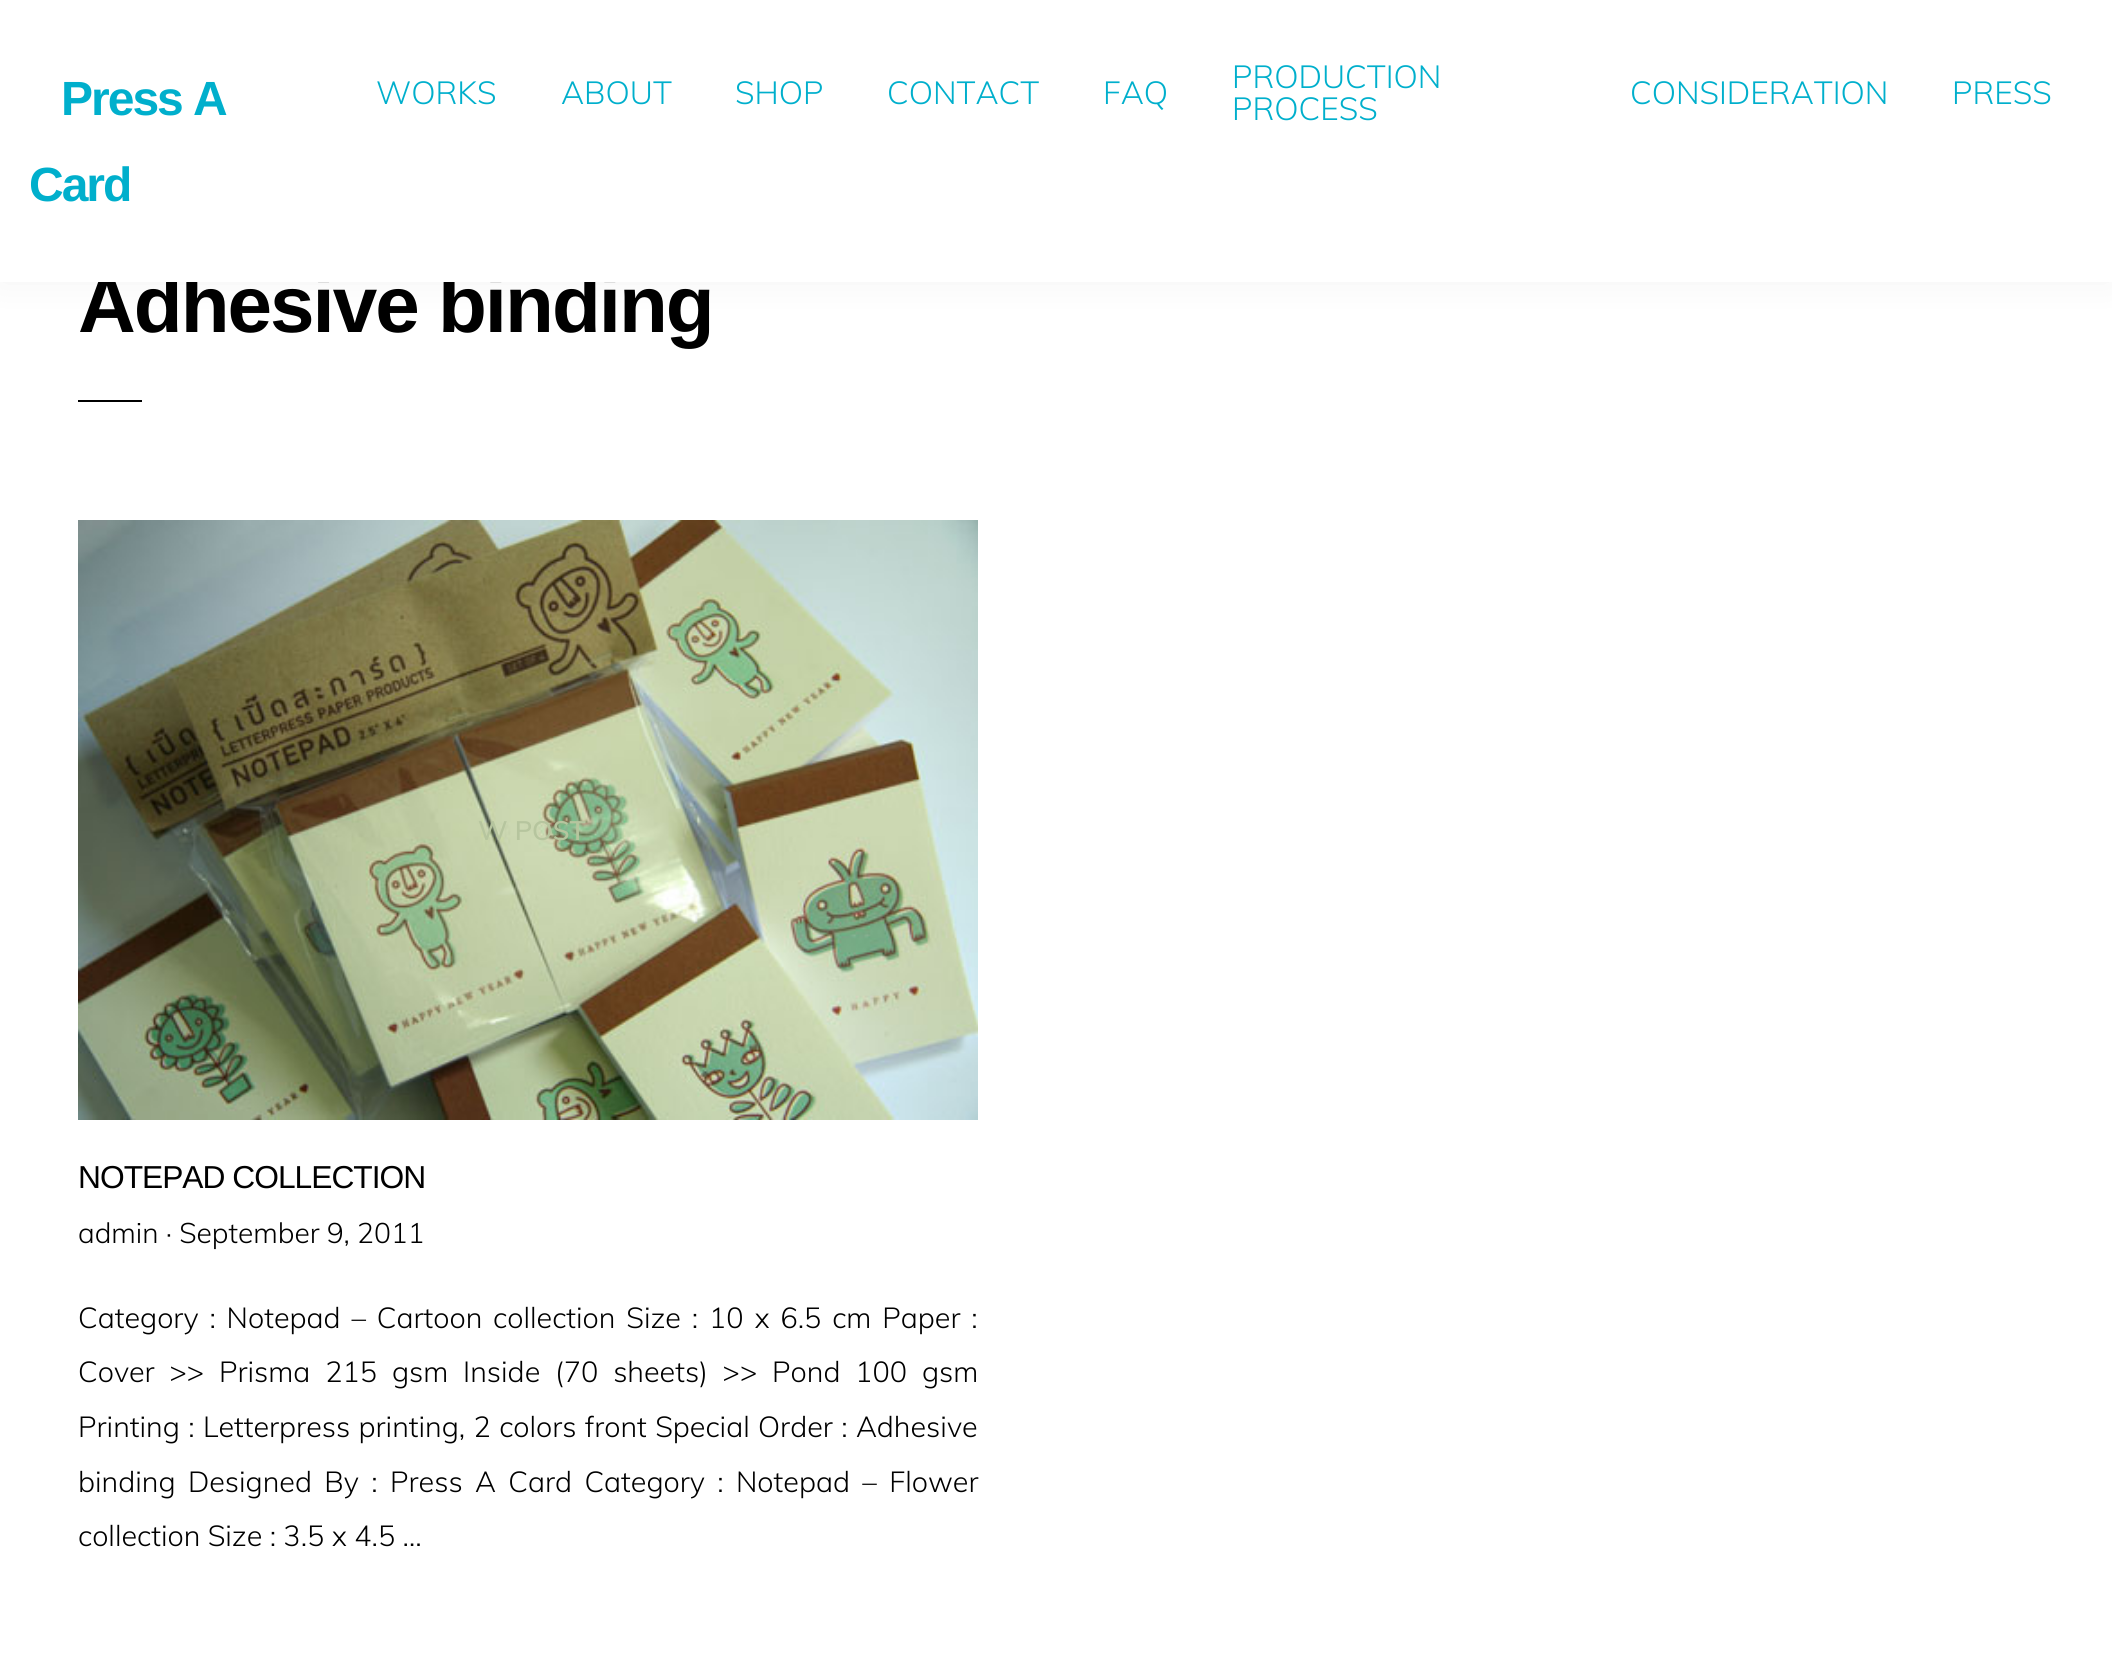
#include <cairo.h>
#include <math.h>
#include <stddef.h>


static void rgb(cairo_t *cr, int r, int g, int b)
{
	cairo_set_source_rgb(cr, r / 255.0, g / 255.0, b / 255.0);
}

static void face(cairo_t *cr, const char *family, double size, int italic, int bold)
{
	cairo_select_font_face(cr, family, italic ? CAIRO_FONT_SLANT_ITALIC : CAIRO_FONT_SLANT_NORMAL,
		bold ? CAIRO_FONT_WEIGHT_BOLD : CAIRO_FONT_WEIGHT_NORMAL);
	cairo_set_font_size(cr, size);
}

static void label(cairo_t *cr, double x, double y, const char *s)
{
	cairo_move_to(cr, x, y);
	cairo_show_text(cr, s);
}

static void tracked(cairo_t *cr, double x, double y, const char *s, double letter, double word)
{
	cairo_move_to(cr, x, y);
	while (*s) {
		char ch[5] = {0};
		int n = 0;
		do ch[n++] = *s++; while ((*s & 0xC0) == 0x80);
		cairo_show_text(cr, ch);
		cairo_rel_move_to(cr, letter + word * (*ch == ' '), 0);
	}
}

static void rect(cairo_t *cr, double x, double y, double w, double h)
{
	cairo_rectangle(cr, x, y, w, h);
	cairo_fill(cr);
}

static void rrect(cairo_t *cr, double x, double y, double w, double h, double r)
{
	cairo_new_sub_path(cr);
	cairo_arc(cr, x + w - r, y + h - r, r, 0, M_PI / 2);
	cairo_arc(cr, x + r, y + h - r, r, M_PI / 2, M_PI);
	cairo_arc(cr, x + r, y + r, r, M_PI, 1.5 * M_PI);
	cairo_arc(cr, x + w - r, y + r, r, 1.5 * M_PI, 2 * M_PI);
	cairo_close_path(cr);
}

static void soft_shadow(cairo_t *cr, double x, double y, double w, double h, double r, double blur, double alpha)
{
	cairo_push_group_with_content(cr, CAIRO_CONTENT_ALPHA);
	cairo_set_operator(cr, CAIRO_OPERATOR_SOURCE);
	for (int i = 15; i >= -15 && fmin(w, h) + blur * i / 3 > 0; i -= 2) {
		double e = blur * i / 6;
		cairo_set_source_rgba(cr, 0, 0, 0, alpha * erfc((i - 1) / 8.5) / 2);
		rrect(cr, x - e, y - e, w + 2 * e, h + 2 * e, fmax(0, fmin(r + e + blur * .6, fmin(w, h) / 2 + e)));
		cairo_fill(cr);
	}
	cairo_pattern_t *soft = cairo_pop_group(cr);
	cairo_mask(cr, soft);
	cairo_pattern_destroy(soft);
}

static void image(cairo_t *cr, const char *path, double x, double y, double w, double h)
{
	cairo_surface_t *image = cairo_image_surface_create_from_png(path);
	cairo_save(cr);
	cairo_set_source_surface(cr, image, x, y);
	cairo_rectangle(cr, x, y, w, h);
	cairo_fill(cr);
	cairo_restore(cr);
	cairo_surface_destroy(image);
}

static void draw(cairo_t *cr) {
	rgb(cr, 255, 255, 255);
	cairo_paint(cr);
	rgb(cr, 0, 0, 0);
	soft_shadow(cr, 0, 0, 2112, 282, 0, 18, 0.05);
	face(cr, "Liberation Sans", 80, 0, 1);
	rgb(cr, 0, 0, 0);
	tracked(cr, 78, 332, "Adhesive binding", -2, 0);
	rgb(cr, 255, 255, 255);
	rect(cr, 0, 0, 2112, 282);
	face(cr, "Liberation Sans", 48, 0, 1);
	rgb(cr, 0, 175, 204);
	tracked(cr, 61, 115, "Press A", -2, 0);
	tracked(cr, 29, 201, "Card", -2, 0);
	face(cr, "Muli Light", 31.75, 0, 0);
	label(cr, 376, 104, "WORKS");
	label(cr, 561, 104, "ABOUT");
	label(cr, 735, 104, "SHOP");
	label(cr, 887, 104, "CONTACT");
	label(cr, 1103, 104, "FAQ");
	label(cr, 1232, 88, "PRODUCTION");
	label(cr, 1232, 120, "PROCESS");
	label(cr, 1630, 104, "CONSIDERATION");
	label(cr, 1952, 104, "PRESS");
	rgb(cr, 0, 0, 0);
	rect(cr, 78, 400, 64, 2);
	image(cr, "image0.png", 78, 520, 900, 600);
	face(cr, "Muli SemiBold", 26.5, 0, 0);
	rgb(cr, 182, 197, 158);
	label(cr, 478, 840, "W POST");
	face(cr, "Liberation Sans", 31.75, 0, 0);
	rgb(cr, 0, 0, 0);
	tracked(cr, 78, 1188, "NOTEPAD COLLECTION", -1, 0);
	face(cr, "Muli Light", 28.2, 0, 0);
	label(cr, 78, 1243, "admin · September 9, 2011");
	face(cr, "Muli Light", 28.8, 0, 0);
	tracked(cr, 78, 1328, "Category : Notepad – Cartoon collection Size : 10 x 6.5 cm Paper :", 0, 3.5);
	tracked(cr, 78, 1382, "Cover >> Prisma 215 gsm Inside (70 sheets) >> Pond 100 gsm", 0, 7.5);
	tracked(cr, 78, 1437, "Printing : Letterpress printing, 2 colors front Special Order : Adhesive", 0, 1);
	tracked(cr, 78, 1492, "binding Designed By : Press A Card Category : Notepad – Flower", 0, 5);
	label(cr, 78, 1546, "collection Size : 3.5 x 4.5 …");
}

int main(void) {
	cairo_surface_t *surface = cairo_image_surface_create(CAIRO_FORMAT_RGB24, 2112, 1657);
	cairo_t *cr = cairo_create(surface);
	cairo_font_options_t *options = cairo_font_options_create();
	cairo_font_options_set_hint_metrics(options, CAIRO_HINT_METRICS_OFF);
	cairo_font_options_set_hint_style(options, CAIRO_HINT_STYLE_NONE);
	cairo_set_font_options(cr, options);
	cairo_set_miter_limit(cr, 4);
	draw(cr);
	cairo_surface_write_to_png(surface, "render.png");
	cairo_font_options_destroy(options);
	cairo_destroy(cr);
	cairo_surface_destroy(surface);
	return 0;
}
